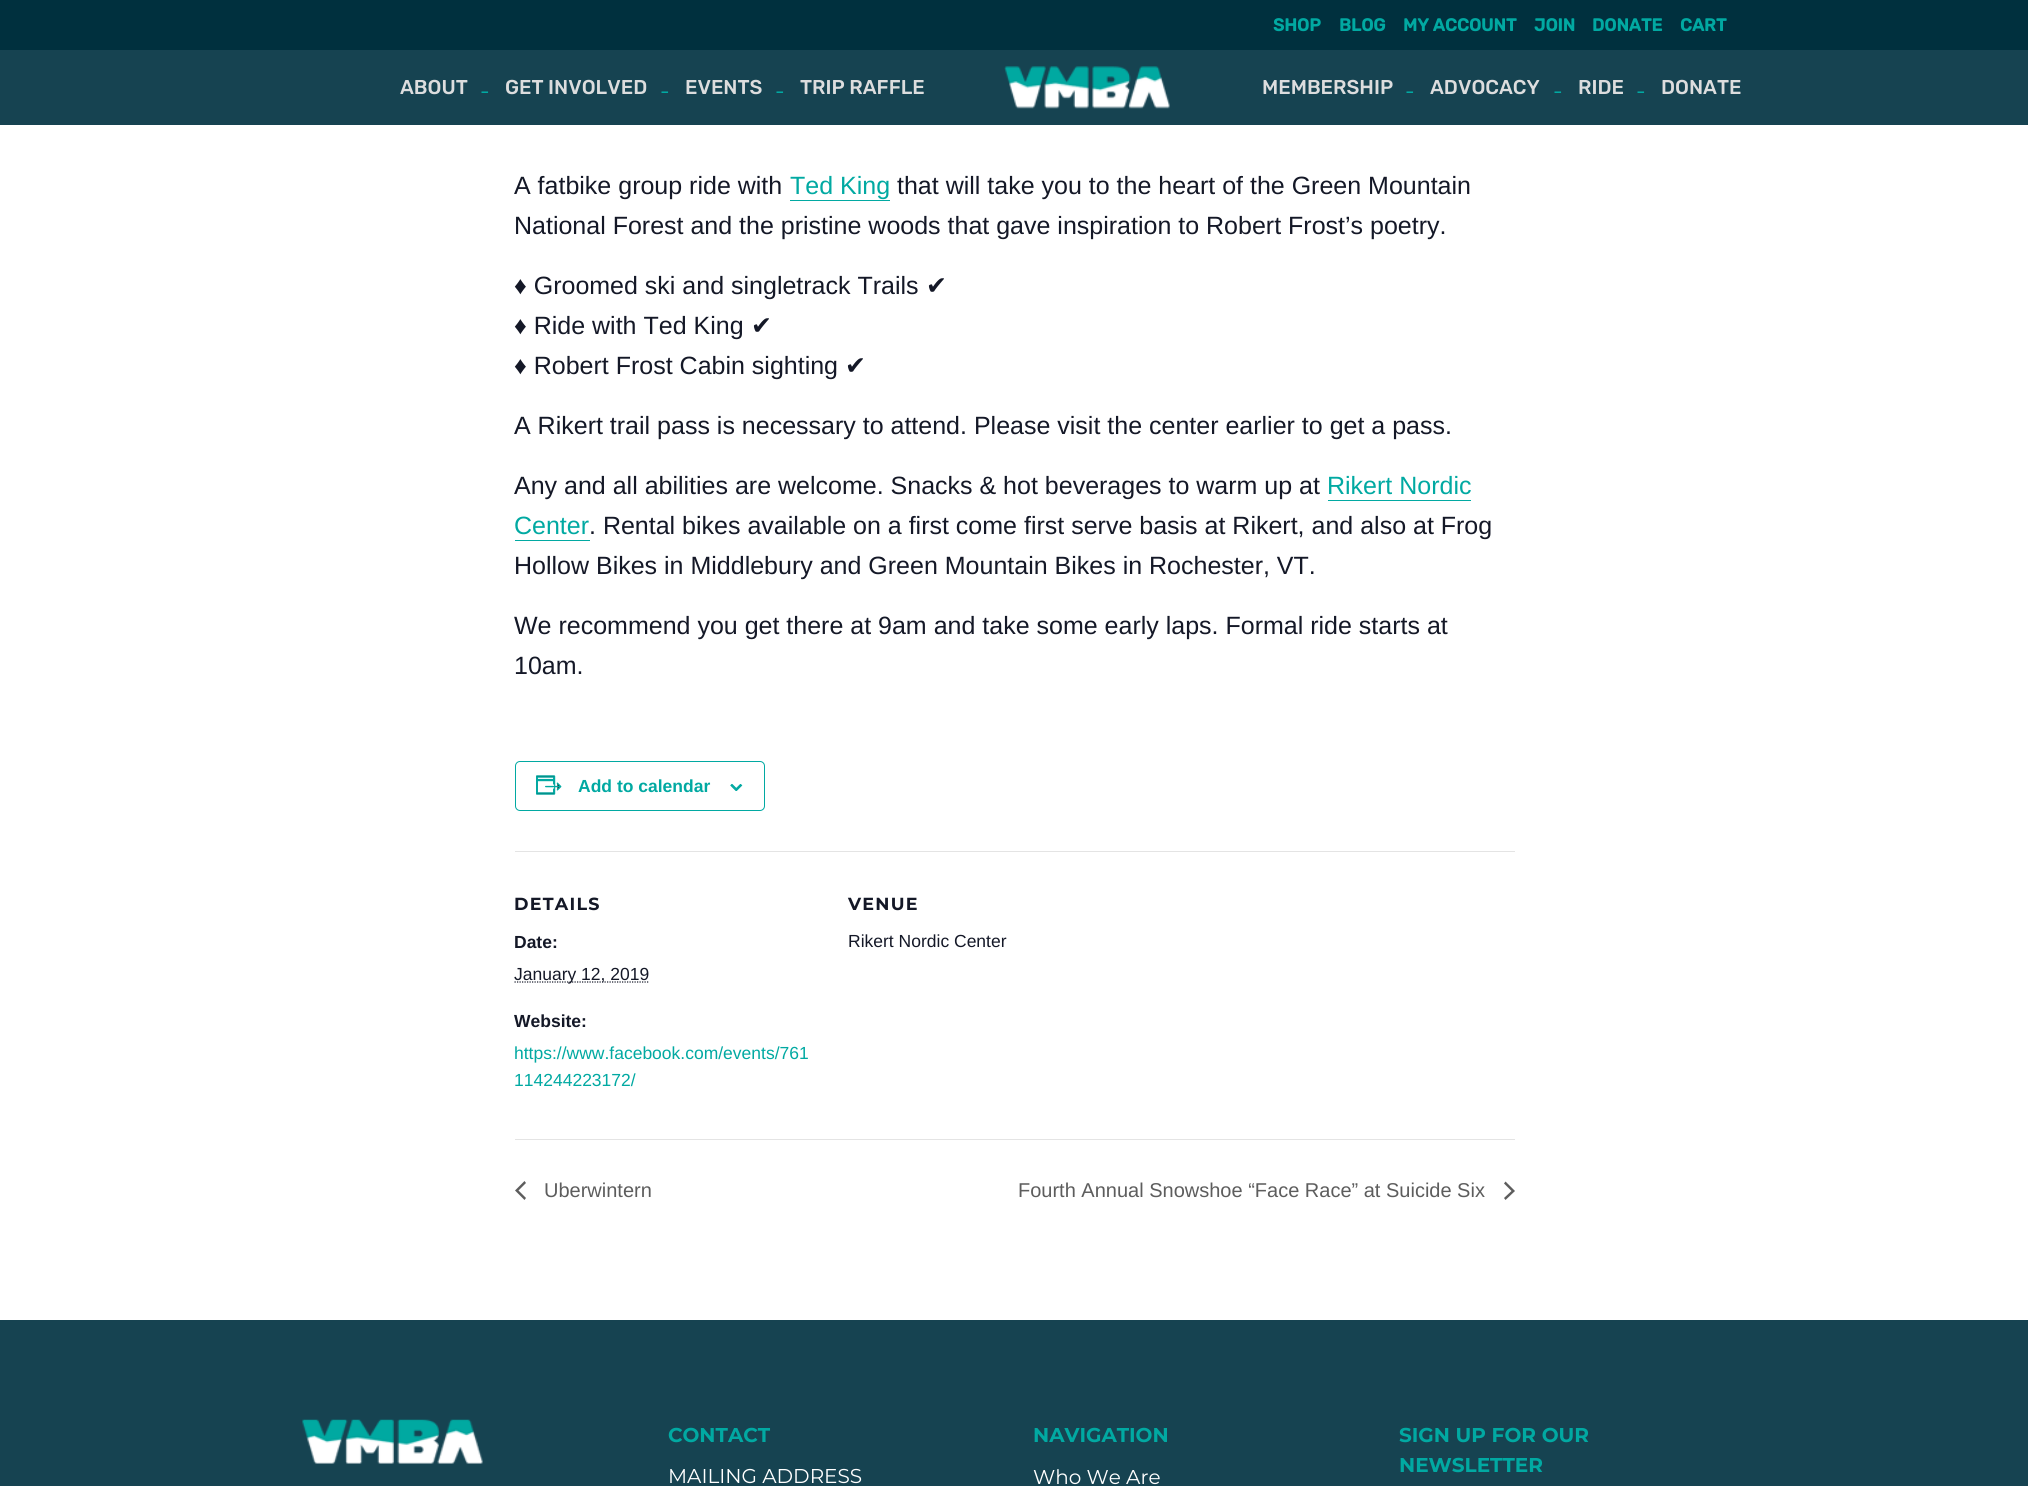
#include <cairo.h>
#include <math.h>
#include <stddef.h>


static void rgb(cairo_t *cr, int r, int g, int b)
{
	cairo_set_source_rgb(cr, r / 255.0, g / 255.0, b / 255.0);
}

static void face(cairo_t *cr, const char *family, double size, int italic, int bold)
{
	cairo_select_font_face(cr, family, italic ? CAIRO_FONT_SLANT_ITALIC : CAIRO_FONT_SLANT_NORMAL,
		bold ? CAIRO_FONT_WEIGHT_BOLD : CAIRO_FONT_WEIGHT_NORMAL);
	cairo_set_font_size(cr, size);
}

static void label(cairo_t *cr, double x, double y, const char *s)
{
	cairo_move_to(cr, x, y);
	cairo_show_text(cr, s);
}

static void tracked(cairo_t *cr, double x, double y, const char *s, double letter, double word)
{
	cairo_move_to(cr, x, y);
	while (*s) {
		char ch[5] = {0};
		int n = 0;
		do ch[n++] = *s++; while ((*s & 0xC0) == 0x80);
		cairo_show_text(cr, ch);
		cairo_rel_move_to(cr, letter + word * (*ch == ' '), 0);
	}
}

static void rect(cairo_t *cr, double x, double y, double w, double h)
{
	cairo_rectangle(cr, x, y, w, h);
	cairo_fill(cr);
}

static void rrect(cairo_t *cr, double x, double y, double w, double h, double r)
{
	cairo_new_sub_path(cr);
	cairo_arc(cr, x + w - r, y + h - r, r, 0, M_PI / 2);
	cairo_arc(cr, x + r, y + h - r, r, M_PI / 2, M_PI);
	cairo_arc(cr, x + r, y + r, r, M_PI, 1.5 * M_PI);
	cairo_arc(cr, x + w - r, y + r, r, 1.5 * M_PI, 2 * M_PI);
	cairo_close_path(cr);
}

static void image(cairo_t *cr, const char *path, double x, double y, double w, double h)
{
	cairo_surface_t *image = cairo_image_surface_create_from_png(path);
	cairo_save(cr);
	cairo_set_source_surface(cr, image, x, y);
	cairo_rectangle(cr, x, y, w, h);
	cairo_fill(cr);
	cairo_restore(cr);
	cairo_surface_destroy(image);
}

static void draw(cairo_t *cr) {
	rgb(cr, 255, 255, 255);
	cairo_paint(cr);
	rgb(cr, 22, 67, 81);
	rect(cr, 0, 50, 2028, 75);
	rgb(cr, 0, 48, 62);
	rect(cr, 0, 0, 2028, 50);
	face(cr, "Rubik", 17.5, 0, 1);
	rgb(cr, 1, 169, 162);
	label(cr, 1273, 31, "SHOP");
	label(cr, 1339, 31, "BLOG");
	label(cr, 1403, 31, "MY ACCOUNT");
	label(cr, 1534, 31, "JOIN");
	label(cr, 1592, 31, "DONATE");
	label(cr, 1680, 31, "CART");
	face(cr, "Rubik Light", 20, 0, 0);
	rgb(cr, 220, 221, 222);
	label(cr, 400, 94, "ABOUT");
	face(cr, "Montserrat", 25, 0, 0);
	rgb(cr, 1, 169, 162);
	label(cr, 480, 99, "-");
	face(cr, "Rubik Light", 20, 0, 0);
	rgb(cr, 220, 221, 222);
	label(cr, 505, 94, "GET INVOLVED");
	face(cr, "Montserrat", 25, 0, 0);
	rgb(cr, 1, 169, 162);
	label(cr, 660, 99, "-");
	face(cr, "Rubik Light", 20, 0, 0);
	rgb(cr, 220, 221, 222);
	label(cr, 685, 94, "EVENTS");
	face(cr, "Montserrat", 25, 0, 0);
	rgb(cr, 1, 169, 162);
	label(cr, 775, 99, "-");
	face(cr, "Rubik Light", 20, 0, 0);
	rgb(cr, 220, 221, 222);
	label(cr, 800, 94, "TRIP RAFFLE");
	image(cr, "image0.png", 1004, 66, 166, 43);
	label(cr, 1262, 94, "MEMBERSHIP");
	face(cr, "Montserrat", 25, 0, 0);
	rgb(cr, 1, 169, 162);
	label(cr, 1405, 99, "-");
	face(cr, "Rubik Light", 20, 0, 0);
	rgb(cr, 220, 221, 222);
	label(cr, 1430, 94, "ADVOCACY");
	face(cr, "Montserrat", 25, 0, 0);
	rgb(cr, 1, 169, 162);
	label(cr, 1553, 99, "-");
	face(cr, "Rubik Light", 20, 0, 0);
	rgb(cr, 220, 221, 222);
	label(cr, 1578, 94, "RIDE");
	face(cr, "Montserrat", 25, 0, 0);
	rgb(cr, 1, 169, 162);
	label(cr, 1636, 99, "-");
	face(cr, "Rubik Light", 20, 0, 0);
	rgb(cr, 220, 221, 222);
	label(cr, 1661, 94, "DONATE");
	face(cr, "Liberation Sans", 25, 0, 0);
	rgb(cr, 20, 24, 39);
	label(cr, 514, 194, "A fatbike group ride with");
	rgb(cr, 1, 169, 162);
	label(cr, 790, 194, "Ted King");
	rect(cr, 790, 200, 100, 1);
	rgb(cr, 20, 24, 39);
	label(cr, 897, 194, "that will take you to the heart of the Green Mountain");
	label(cr, 514, 234, "National Forest and the pristine woods that gave inspiration to Robert Frost’s poetry.");
	label(cr, 514, 294, "♦ Groomed ski and singletrack Trails");
	face(cr, "DejaVu Sans", 25, 0, 0);
	label(cr, 926, 294, "✔");
	face(cr, "Liberation Sans", 25, 0, 0);
	label(cr, 514, 334, "♦ Ride with Ted King");
	face(cr, "DejaVu Sans", 25, 0, 0);
	label(cr, 751, 334, "✔");
	face(cr, "Liberation Sans", 25, 0, 0);
	label(cr, 514, 374, "♦ Robert Frost Cabin sighting");
	face(cr, "DejaVu Sans", 25, 0, 0);
	label(cr, 845, 374, "✔");
	face(cr, "Liberation Sans", 25, 0, 0);
	label(cr, 514, 434, "A Rikert trail pass is necessary to attend. Please visit the center earlier to get a pass.");
	label(cr, 514, 494, "Any and all abilities are welcome. Snacks & hot beverages to warm up at");
	rgb(cr, 1, 169, 162);
	label(cr, 1327, 494, "Rikert Nordic");
	rect(cr, 1328, 500, 143, 1);
	label(cr, 514, 534, "Center");
	rect(cr, 515, 540, 75, 1);
	rgb(cr, 20, 24, 39);
	label(cr, 589, 534, ". Rental bikes available on a first come first serve basis at Rikert, and also at Frog");
	label(cr, 514, 574, "Hollow Bikes in Middlebury and Green Mountain Bikes in Rochester, VT.");
	label(cr, 514, 634, "We recommend you get there at 9am and take some early laps. Formal ride starts at");
	label(cr, 514, 674, "10am.");
	rrect(cr, 515.5, 761.5, 249, 49, 4.5);
	rgb(cr, 1, 169, 162);
	cairo_set_line_width(cr, 1);
	cairo_stroke(cr);
	image(cr, "image1.png", 536, 775, 26, 20);
	face(cr, "Liberation Sans", 17.5, 0, 1);
	label(cr, 578, 792, "Add to calendar");
	image(cr, "image2.png", 730, 784, 13, 7);
	rgb(cr, 228, 228, 228);
	rect(cr, 515, 851, 1000, 1);
	face(cr, "Montserrat", 17.5, 0, 1);
	rgb(cr, 20, 24, 39);
	tracked(cr, 514, 910, "DETAILS", 1.25, 0);
	face(cr, "Liberation Sans", 17.5, 0, 1);
	label(cr, 514, 948, "Date:");
	cairo_new_path(cr);
	cairo_move_to(cr, 514.5, 982);
	cairo_line_to(cr, 649.5, 982);
	cairo_set_line_width(cr, 1.2);
	cairo_set_dash(cr, (double[]){1.25, 1.25}, 2, 0);
	cairo_stroke(cr);
	face(cr, "Liberation Sans", 17.5, 0, 0);
	label(cr, 514, 980, "January 12, 2019");
	face(cr, "Liberation Sans", 17.5, 0, 1);
	label(cr, 514, 1027, "Website:");
	face(cr, "Liberation Sans", 17.5, 0, 0);
	rgb(cr, 1, 169, 162);
	label(cr, 514, 1059, "https://www.facebook.com/events/761");
	label(cr, 514, 1086, "114244223172/");
	face(cr, "Montserrat", 17.5, 0, 1);
	rgb(cr, 20, 24, 39);
	tracked(cr, 848, 910, "VENUE", 1.25, 0);
	face(cr, "Liberation Sans", 17.5, 0, 0);
	label(cr, 848, 947, "Rikert Nordic Center");
	rgb(cr, 228, 228, 228);
	rect(cr, 515, 1139, 1000, 1);
	rgb(cr, 93, 93, 93);
	cairo_new_path(cr);
	cairo_move_to(cr, 526, 1198);
	cairo_line_to(cr, 524.5, 1200);
	cairo_line_to(cr, 515, 1190.5);
	cairo_line_to(cr, 524.5, 1181);
	cairo_line_to(cr, 526, 1183);
	cairo_line_to(cr, 518.5, 1190.5);
	cairo_close_path(cr);
	cairo_fill(cr);
	face(cr, "Liberation Sans", 20, 0, 0);
	label(cr, 544, 1197, "Uberwintern");
	label(cr, 1018, 1197, "Fourth Annual Snowshoe “Face Race” at Suicide Six");
	cairo_new_path(cr);
	cairo_move_to(cr, 1504, 1183.5);
	cairo_line_to(cr, 1505.5, 1181.5);
	cairo_line_to(cr, 1515, 1191);
	cairo_line_to(cr, 1505.5, 1200);
	cairo_line_to(cr, 1504, 1198);
	cairo_line_to(cr, 1511.5, 1191);
	cairo_close_path(cr);
	cairo_fill(cr);
	rgb(cr, 22, 67, 81);
	rect(cr, 0, 1320, 2028, 166);
	image(cr, "image3.png", 302, 1419, 181, 45);
	face(cr, "Montserrat", 20, 0, 1);
	rgb(cr, 1, 169, 162);
	label(cr, 668, 1442, "CONTACT");
	face(cr, "Montserrat", 20, 0, 0);
	rgb(cr, 255, 255, 255);
	label(cr, 668, 1483, "MAILING ADDRESS");
	face(cr, "Montserrat", 20, 0, 1);
	rgb(cr, 1, 169, 162);
	label(cr, 1033, 1442, "NAVIGATION");
	face(cr, "Montserrat", 20, 0, 0);
	rgb(cr, 255, 255, 255);
	label(cr, 1033, 1484, "Who We Are");
	face(cr, "Montserrat", 20, 0, 1);
	rgb(cr, 1, 169, 162);
	label(cr, 1399, 1442, "SIGN UP FOR OUR");
	label(cr, 1399, 1472, "NEWSLETTER");
}

int main(void) {
	cairo_surface_t *surface = cairo_image_surface_create(CAIRO_FORMAT_RGB24, 2028, 1486);
	cairo_t *cr = cairo_create(surface);
	cairo_font_options_t *options = cairo_font_options_create();
	cairo_font_options_set_hint_metrics(options, CAIRO_HINT_METRICS_OFF);
	cairo_font_options_set_hint_style(options, CAIRO_HINT_STYLE_NONE);
	cairo_set_font_options(cr, options);
	cairo_set_miter_limit(cr, 4);
	draw(cr);
	cairo_surface_write_to_png(surface, "render.png");
	cairo_font_options_destroy(options);
	cairo_destroy(cr);
	cairo_surface_destroy(surface);
	return 0;
}
